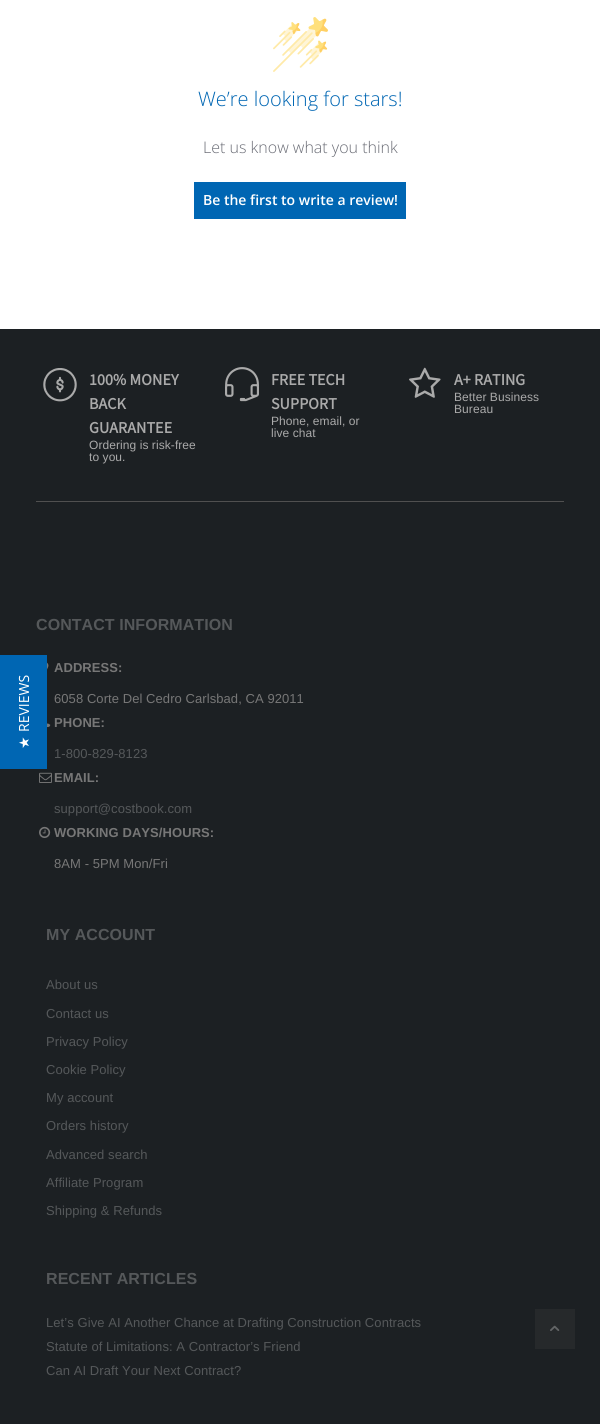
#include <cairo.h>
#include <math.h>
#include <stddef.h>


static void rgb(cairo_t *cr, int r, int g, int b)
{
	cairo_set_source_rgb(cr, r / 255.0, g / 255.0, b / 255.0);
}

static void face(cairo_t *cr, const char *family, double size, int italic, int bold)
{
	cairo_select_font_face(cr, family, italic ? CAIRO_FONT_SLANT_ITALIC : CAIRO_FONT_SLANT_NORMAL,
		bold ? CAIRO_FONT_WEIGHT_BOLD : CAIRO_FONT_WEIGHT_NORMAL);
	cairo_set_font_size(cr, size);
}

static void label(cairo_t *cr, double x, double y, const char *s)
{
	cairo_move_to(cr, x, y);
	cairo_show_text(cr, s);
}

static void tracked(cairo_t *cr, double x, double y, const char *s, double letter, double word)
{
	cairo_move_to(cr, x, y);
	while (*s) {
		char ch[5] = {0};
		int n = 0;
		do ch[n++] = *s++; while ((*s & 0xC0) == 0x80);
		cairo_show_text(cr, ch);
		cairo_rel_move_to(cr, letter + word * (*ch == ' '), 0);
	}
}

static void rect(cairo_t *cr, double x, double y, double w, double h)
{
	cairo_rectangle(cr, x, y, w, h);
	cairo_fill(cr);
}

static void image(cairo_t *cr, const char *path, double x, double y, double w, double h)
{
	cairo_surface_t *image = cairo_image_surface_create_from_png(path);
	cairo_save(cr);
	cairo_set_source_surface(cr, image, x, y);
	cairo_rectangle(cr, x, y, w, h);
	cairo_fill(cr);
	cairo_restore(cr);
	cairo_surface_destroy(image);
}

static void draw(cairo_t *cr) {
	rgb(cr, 255, 255, 255);
	cairo_paint(cr);
	rgb(cr, 28, 32, 35);
	rect(cr, 0, 329, 600, 1095);
	rgb(cr, 0, 102, 179);
	rect(cr, 0, 655, 47, 114);
	face(cr, "Open Sans", 14, 0, 0);
	rgb(cr, 255, 255, 255);
	cairo_save(cr);
	cairo_translate(cr, 29, 732);
	cairo_rotate(cr, -90 * M_PI / 180);
	label(cr, 0, 0, "REVIEWS");
	cairo_restore(cr);
	face(cr, "DejaVu Sans", 14, 0, 0);
	cairo_save(cr);
	cairo_translate(cr, 29, 749);
	cairo_rotate(cr, -90 * M_PI / 180);
	label(cr, 0, 0, "★");
	cairo_restore(cr);
	image(cr, "image0.png", 273, 17, 55, 55);
	face(cr, "Open Sans Light", 20, 0, 0);
	rgb(cr, 0, 102, 179);
	label(cr, 198, 106, "We’re looking for stars!");
	face(cr, "Open Sans Light", 16, 0, 0);
	rgb(cr, 107, 109, 118);
	label(cr, 203, 153, "Let us know what you think");
	rgb(cr, 0, 102, 179);
	rect(cr, 194, 182, 212, 37);
	face(cr, "Open Sans SemiBold", 14, 0, 0);
	rgb(cr, 255, 255, 255);
	label(cr, 203, 205, "Be the first to write a review!");
	rgb(cr, 80, 80, 80);
	rect(cr, 36, 501, 528, 1);
	image(cr, "image1.png", 43, 368, 34, 34);
	face(cr, "Source Sans Pro", 16, 0, 1);
	rgb(cr, 170, 170, 170);
	tracked(cr, 89, 385, "100% MONEY", 0.07, 0);
	tracked(cr, 89, 409, "BACK", 0.07, 0);
	tracked(cr, 89, 433, "GUARANTEE", 0.07, 0);
	face(cr, "Liberation Sans", 12, 0, 0);
	tracked(cr, 89, 449, "Ordering is risk-free", 0.07, 0);
	tracked(cr, 89, 461, "to you.", 0.07, 0);
	image(cr, "image2.png", 225, 367, 34, 35);
	face(cr, "Source Sans Pro", 16, 0, 1);
	tracked(cr, 271, 385, "FREE TECH", 0.07, 0);
	tracked(cr, 271, 409, "SUPPORT", 0.07, 0);
	face(cr, "Liberation Sans", 12, 0, 0);
	tracked(cr, 271, 425, "Phone, email, or", 0.07, 0);
	tracked(cr, 271, 437, "live chat", 0.07, 0);
	image(cr, "image3.png", 409, 367, 32, 31);
	face(cr, "Source Sans Pro", 16, 0, 1);
	tracked(cr, 454, 385, "A+ RATING", 0.07, 0);
	face(cr, "Liberation Sans", 12, 0, 0);
	tracked(cr, 454, 401, "Better Business", 0.07, 0);
	tracked(cr, 454, 413, "Bureau", 0.07, 0);
	face(cr, "Liberation Sans", 16, 0, 1);
	rgb(cr, 85, 88, 90);
	tracked(cr, 36, 630, "CONTACT INFORMATION", 0.07, 0);
	image(cr, "image4.png", 47, 662, 2, 8);
	face(cr, "Liberation Sans", 13, 0, 1);
	rgb(cr, 119, 119, 119);
	tracked(cr, 54, 672, "ADDRESS:", 0.07, 0);
	face(cr, "Liberation Sans", 13, 0, 0);
	tracked(cr, 54, 703, "6058 Corte Del Cedro Carlsbad, CA 92011", 0.07, 0);
	image(cr, "image5.png", 47, 723, 4, 5);
	face(cr, "Liberation Sans", 13, 0, 1);
	tracked(cr, 54, 727, "PHONE:", 0.07, 0);
	face(cr, "Liberation Sans", 13, 0, 0);
	rgb(cr, 85, 88, 90);
	tracked(cr, 54, 758, "1-800-829-8123", 0.07, 0);
	image(cr, "image6.png", 39, 772, 13, 11);
	face(cr, "Liberation Sans", 13, 0, 1);
	rgb(cr, 119, 119, 119);
	tracked(cr, 54, 782, "EMAIL:", 0.07, 0);
	face(cr, "Liberation Sans", 13, 0, 0);
	rgb(cr, 85, 88, 90);
	tracked(cr, 54, 813, "support@costbook.com", 0.07, 0);
	image(cr, "image7.png", 39, 826, 12, 12);
	face(cr, "Liberation Sans", 13, 0, 1);
	rgb(cr, 119, 119, 119);
	tracked(cr, 54, 837, "WORKING DAYS/HOURS:", 0.07, 0);
	face(cr, "Liberation Sans", 13, 0, 0);
	tracked(cr, 54, 868, "8AM - 5PM Mon/Fri", 0.07, 0);
	face(cr, "Liberation Sans", 16, 0, 1);
	rgb(cr, 85, 88, 90);
	tracked(cr, 46, 940, "MY ACCOUNT", 0.07, 0);
	face(cr, "Liberation Sans", 13, 0, 0);
	tracked(cr, 46, 989, "About us", 0.07, 0);
	tracked(cr, 46, 1018, "Contact us", 0.07, 0);
	tracked(cr, 46, 1046, "Privacy Policy", 0.07, 0);
	tracked(cr, 46, 1074, "Cookie Policy", 0.07, 0);
	tracked(cr, 46, 1102, "My account", 0.07, 0);
	tracked(cr, 46, 1130, "Orders history", 0.07, 0);
	tracked(cr, 46, 1159, "Advanced search", 0.07, 0);
	tracked(cr, 46, 1187, "Affiliate Program", 0.07, 0);
	tracked(cr, 46, 1215, "Shipping & Refunds", 0.07, 0);
	face(cr, "Liberation Sans", 16, 0, 1);
	tracked(cr, 46, 1284, "RECENT ARTICLES", 0.07, 0);
	face(cr, "Liberation Sans", 13, 0, 0);
	tracked(cr, 46, 1327, "Let’s Give AI Another Chance at Drafting Construction Contracts", 0.07, 0);
	tracked(cr, 46, 1351, "Statute of Limitations: A Contractor’s Friend", 0.07, 0);
	tracked(cr, 46, 1375, "Can AI Draft Your Next Contract?", 0.07, 0);
	rgb(cr, 38, 41, 43);
	rect(cr, 535, 1309, 40, 40);
	image(cr, "image8.png", 550, 1325, 10, 6);
}

int main(void) {
	cairo_surface_t *surface = cairo_image_surface_create(CAIRO_FORMAT_RGB24, 600, 1424);
	cairo_t *cr = cairo_create(surface);
	cairo_font_options_t *options = cairo_font_options_create();
	cairo_font_options_set_hint_metrics(options, CAIRO_HINT_METRICS_OFF);
	cairo_font_options_set_hint_style(options, CAIRO_HINT_STYLE_NONE);
	cairo_set_font_options(cr, options);
	cairo_set_miter_limit(cr, 4);
	draw(cr);
	cairo_surface_write_to_png(surface, "render.png");
	cairo_font_options_destroy(options);
	cairo_destroy(cr);
	cairo_surface_destroy(surface);
	return 0;
}
